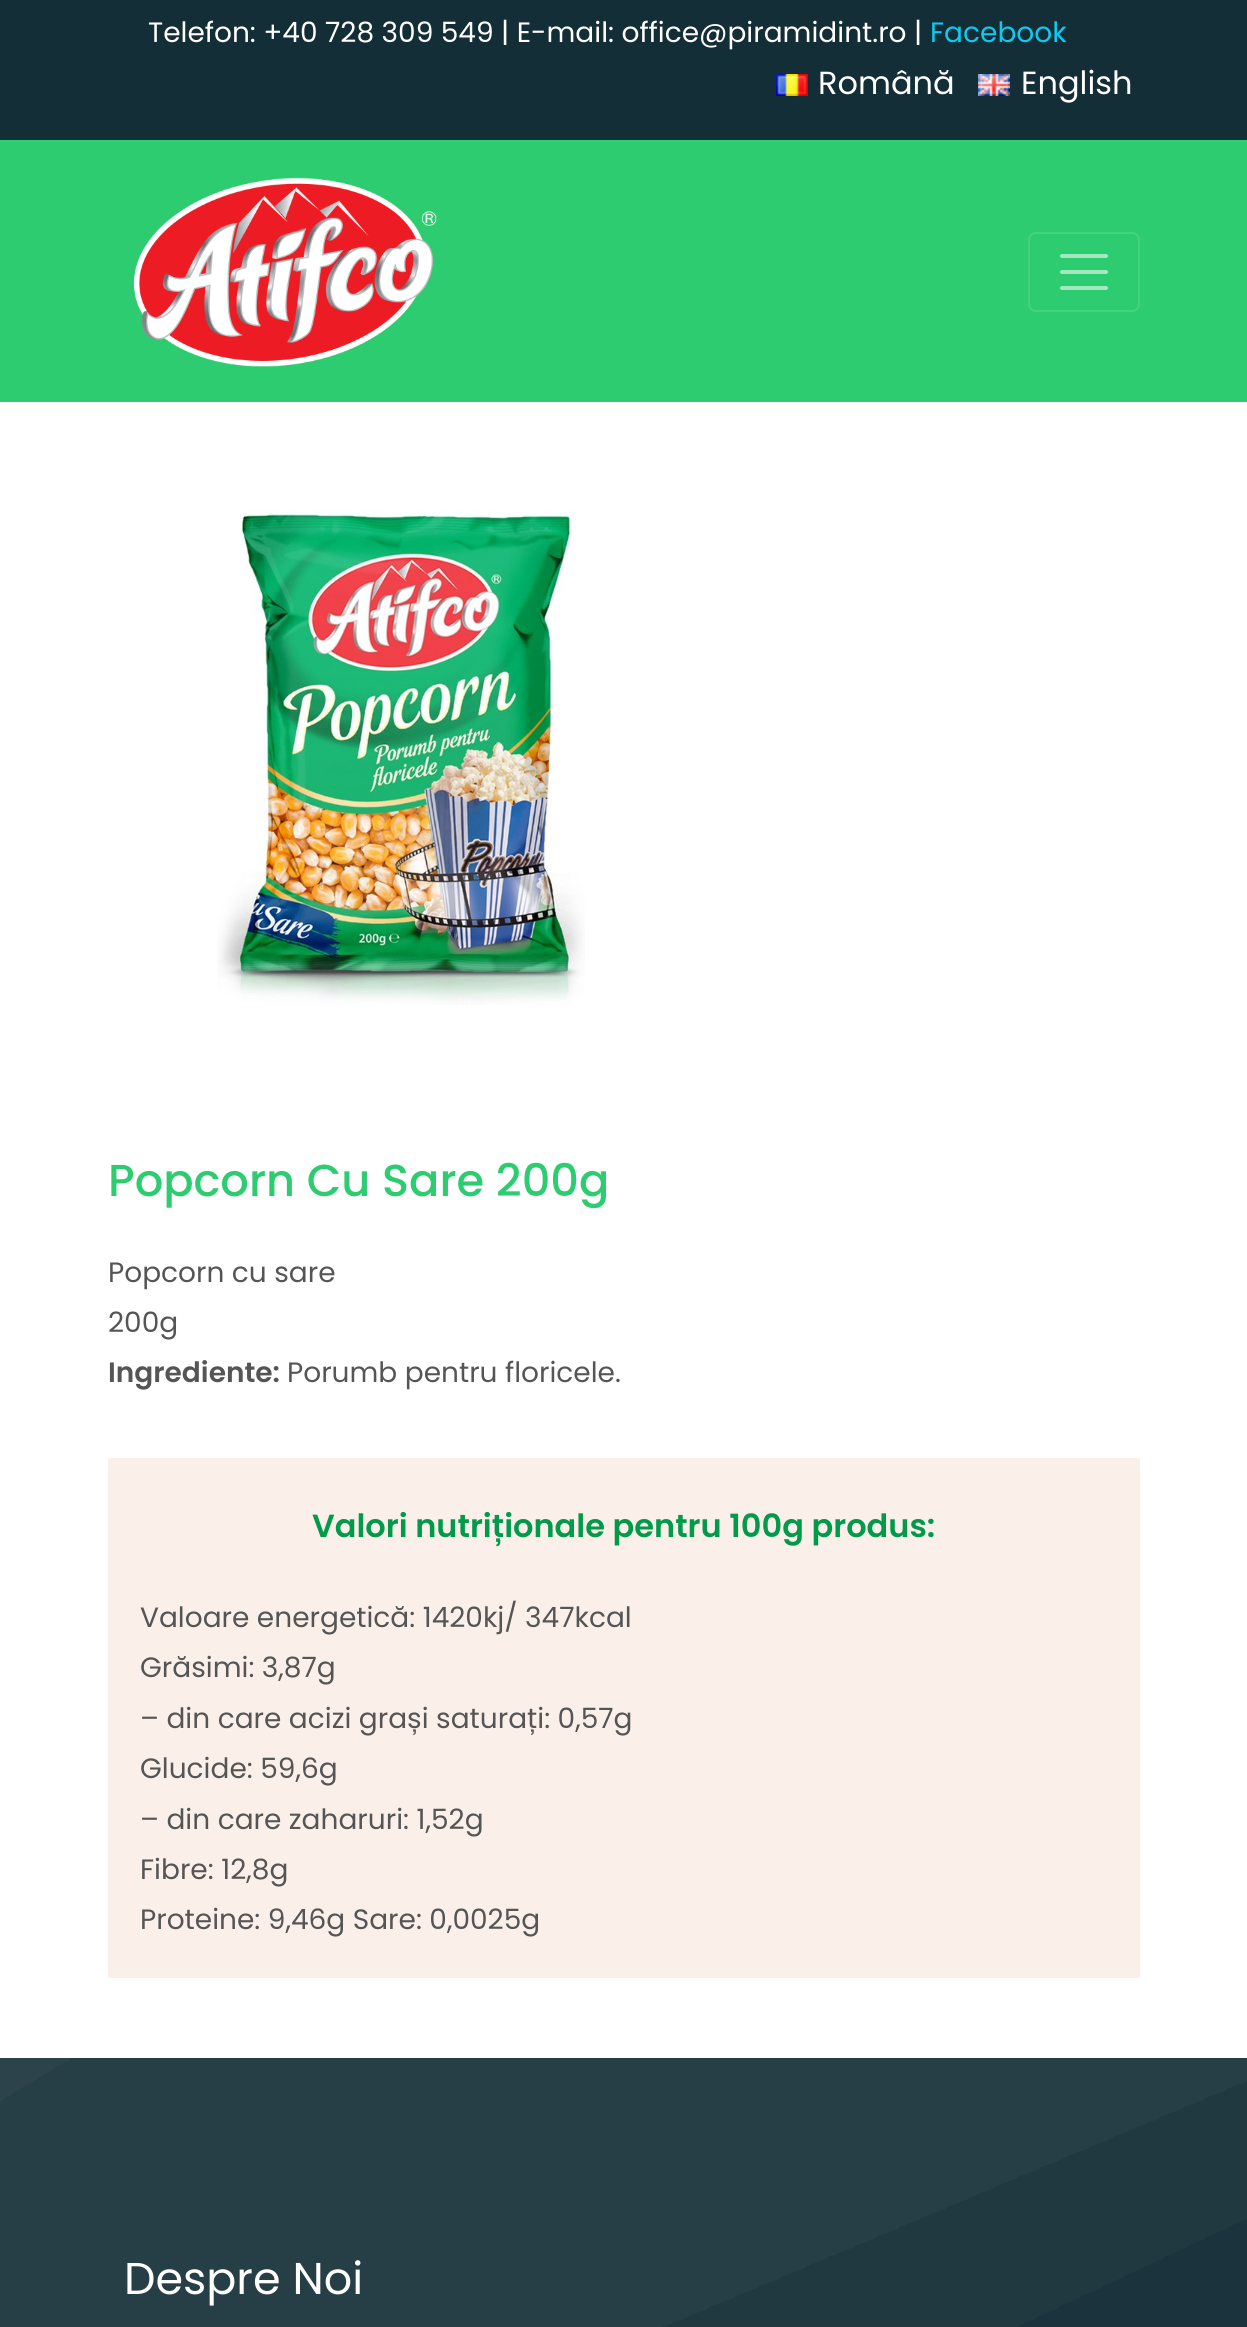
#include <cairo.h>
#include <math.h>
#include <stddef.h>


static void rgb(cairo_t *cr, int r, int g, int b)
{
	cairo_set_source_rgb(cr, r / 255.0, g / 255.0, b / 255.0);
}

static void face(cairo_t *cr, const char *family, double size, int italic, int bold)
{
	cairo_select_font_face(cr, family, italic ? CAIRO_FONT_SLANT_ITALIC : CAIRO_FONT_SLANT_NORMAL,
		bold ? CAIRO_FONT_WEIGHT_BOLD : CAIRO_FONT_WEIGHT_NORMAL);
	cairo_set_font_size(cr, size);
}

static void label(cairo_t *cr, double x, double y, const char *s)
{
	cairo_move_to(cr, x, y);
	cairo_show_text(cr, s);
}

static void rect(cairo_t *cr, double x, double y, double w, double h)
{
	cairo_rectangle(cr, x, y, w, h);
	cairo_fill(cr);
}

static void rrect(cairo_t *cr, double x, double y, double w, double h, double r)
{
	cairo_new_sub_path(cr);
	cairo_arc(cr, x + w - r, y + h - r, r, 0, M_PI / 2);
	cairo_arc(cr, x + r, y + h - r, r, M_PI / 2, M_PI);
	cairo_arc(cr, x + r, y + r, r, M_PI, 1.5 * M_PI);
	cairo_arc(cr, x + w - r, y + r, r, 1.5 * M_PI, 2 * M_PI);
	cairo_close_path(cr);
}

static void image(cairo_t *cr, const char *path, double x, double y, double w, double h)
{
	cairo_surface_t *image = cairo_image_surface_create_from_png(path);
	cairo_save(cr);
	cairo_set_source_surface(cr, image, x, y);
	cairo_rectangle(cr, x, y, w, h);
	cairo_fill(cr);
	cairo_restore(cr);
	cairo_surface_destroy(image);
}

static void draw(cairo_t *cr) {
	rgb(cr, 255, 255, 255);
	cairo_paint(cr);
	rgb(cr, 20, 46, 55);
	rect(cr, 0, 0, 1247, 140);
	face(cr, "Poppins", 28, 0, 0);
	rgb(cr, 255, 255, 255);
	label(cr, 148, 42, "Telefon: +40 728 309 549 | E-mail: office@piramidint.ro |");
	rgb(cr, 13, 202, 240);
	label(cr, 930, 42, "Facebook");
	image(cr, "image0.png", 776, 74, 32, 22);
	face(cr, "Poppins", 32, 0, 0);
	rgb(cr, 255, 255, 255);
	label(cr, 818, 94, "Română");
	image(cr, "image1.png", 978, 74, 32, 22);
	label(cr, 1021, 94, "English");
	rgb(cr, 46, 204, 113);
	rect(cr, 0, 140, 1247, 262);
	image(cr, "image2.png", 133, 177, 304, 190);
	rrect(cr, 1029, 233, 110, 78, 7);
	rgb(cr, 67, 209, 127);
	cairo_stroke(cr);
	cairo_new_path(cr);
	cairo_move_to(cr, 1062, 256);
	cairo_line_to(cr, 1106, 256);
	cairo_move_to(cr, 1062, 272);
	cairo_line_to(cr, 1106, 272);
	cairo_move_to(cr, 1062, 288);
	cairo_line_to(cr, 1106, 288);
	rgb(cr, 161, 232, 191);
	cairo_set_line_width(cr, 4);
	cairo_set_line_cap(cr, CAIRO_LINE_CAP_ROUND);
	cairo_stroke(cr);
	image(cr, "image3.png", 217, 510, 368, 495);
	face(cr, "Poppins Medium", 44.75, 0, 0);
	rgb(cr, 46, 204, 113);
	label(cr, 108, 1196, "Popcorn Cu Sare 200g");
	face(cr, "Poppins", 28, 0, 0);
	rgb(cr, 85, 85, 85);
	label(cr, 108, 1282, "Popcorn cu sare");
	label(cr, 108, 1332, "200g");
	face(cr, "Poppins SemiBold", 28, 0, 0);
	label(cr, 108, 1382, "Ingrediente:");
	face(cr, "Poppins", 28, 0, 0);
	label(cr, 287, 1382, "Porumb pentru floricele.");
	rgb(cr, 250, 240, 233);
	rect(cr, 108, 1458, 1032, 520);
	face(cr, "Poppins SemiBold", 32, 0, 0);
	rgb(cr, 0, 154, 74);
	label(cr, 312, 1537, "Valori nutriționale pentru 100g produs:");
	face(cr, "Poppins", 28, 0, 0);
	rgb(cr, 85, 85, 85);
	label(cr, 140, 1627, "Valoare energetică: 1420kj/ 347kcal");
	label(cr, 140, 1677, "Grăsimi: 3,87g");
	label(cr, 140, 1728, "– din care acizi grași saturați: 0,57g");
	label(cr, 140, 1778, "Glucide: 59,6g");
	label(cr, 140, 1829, "– din care zaharuri: 1,52g");
	label(cr, 140, 1879, "Fibre: 12,8g");
	label(cr, 140, 1929, "Proteine: 9,46g Sare: 0,0025g");
	image(cr, "image4.png", 0, 2058, 1247, 269);
	face(cr, "Poppins", 44.5, 0, 0);
	rgb(cr, 255, 255, 255);
	label(cr, 124, 2294, "Despre Noi");
}

int main(void) {
	cairo_surface_t *surface = cairo_image_surface_create(CAIRO_FORMAT_RGB24, 1247, 2327);
	cairo_t *cr = cairo_create(surface);
	cairo_font_options_t *options = cairo_font_options_create();
	cairo_font_options_set_hint_metrics(options, CAIRO_HINT_METRICS_OFF);
	cairo_font_options_set_hint_style(options, CAIRO_HINT_STYLE_NONE);
	cairo_set_font_options(cr, options);
	cairo_set_miter_limit(cr, 4);
	draw(cr);
	cairo_surface_write_to_png(surface, "render.png");
	cairo_font_options_destroy(options);
	cairo_destroy(cr);
	cairo_surface_destroy(surface);
	return 0;
}
